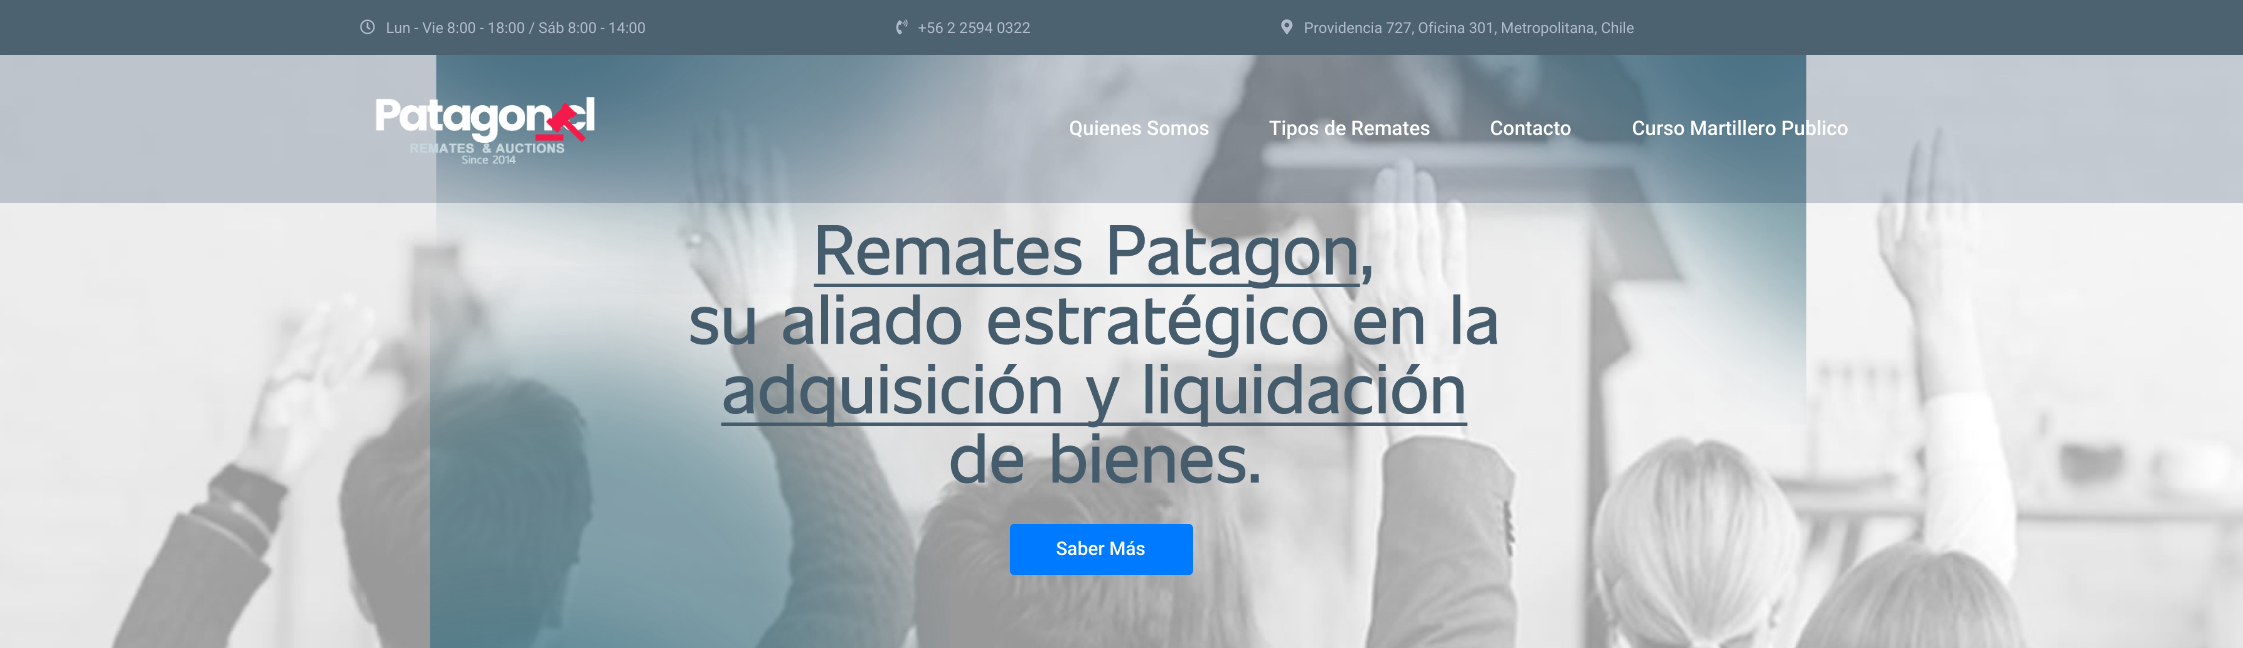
#include <cairo.h>
#include <math.h>
#include <stddef.h>


static void rgb(cairo_t *cr, int r, int g, int b)
{
	cairo_set_source_rgb(cr, r / 255.0, g / 255.0, b / 255.0);
}

static void face(cairo_t *cr, const char *family, double size, int italic, int bold)
{
	cairo_select_font_face(cr, family, italic ? CAIRO_FONT_SLANT_ITALIC : CAIRO_FONT_SLANT_NORMAL,
		bold ? CAIRO_FONT_WEIGHT_BOLD : CAIRO_FONT_WEIGHT_NORMAL);
	cairo_set_font_size(cr, size);
}

static void label(cairo_t *cr, double x, double y, const char *s)
{
	cairo_move_to(cr, x, y);
	cairo_show_text(cr, s);
}

static void rect(cairo_t *cr, double x, double y, double w, double h)
{
	cairo_rectangle(cr, x, y, w, h);
	cairo_fill(cr);
}

static void rrect(cairo_t *cr, double x, double y, double w, double h, double r)
{
	cairo_new_sub_path(cr);
	cairo_arc(cr, x + w - r, y + h - r, r, 0, M_PI / 2);
	cairo_arc(cr, x + r, y + h - r, r, M_PI / 2, M_PI);
	cairo_arc(cr, x + r, y + r, r, M_PI, 1.5 * M_PI);
	cairo_arc(cr, x + w - r, y + r, r, 1.5 * M_PI, 2 * M_PI);
	cairo_close_path(cr);
}

static void image(cairo_t *cr, const char *path, double x, double y, double w, double h)
{
	cairo_surface_t *image = cairo_image_surface_create_from_png(path);
	cairo_save(cr);
	cairo_set_source_surface(cr, image, x, y);
	cairo_rectangle(cr, x, y, w, h);
	cairo_fill(cr);
	cairo_restore(cr);
	cairo_surface_destroy(image);
}

static void draw(cairo_t *cr) {
	rgb(cr, 255, 255, 255);
	cairo_paint(cr);
	rgb(cr, 77, 98, 112);
	rect(cr, 0, 0, 2243, 55);
	image(cr, "image0.png", 360, 19, 15, 16);
	face(cr, "Roboto", 15, 0, 0);
	rgb(cr, 176, 187, 205);
	label(cr, 386, 33, "Lun - Vie 8:00 - 18:00 / Sáb 8:00 - 14:00");
	image(cr, "image1.png", 896, 19, 12, 16);
	label(cr, 918, 33, "+56 2 2594 0322");
	image(cr, "image2.png", 1281, 19, 12, 16);
	label(cr, 1304, 33, "Providencia 727, Oficina 301, Metropolitana, Chile");
	image(cr, "image4.png", 0, 55, 2243, 593);
	image(cr, "image5.png", 436, 55, 611, 239);
	image(cr, "image6.png", 1345, 55, 462, 370);
	cairo_set_source_rgba(cr, 0.008, 0.129, 0.278, 0.2);
	rect(cr, 0, 55, 2243, 148);
	image(cr, "image3.png", 375, 97, 220, 68);
	face(cr, "Roboto Medium", 20, 0, 0);
	rgb(cr, 255, 255, 255);
	label(cr, 1069, 135, "Quienes Somos");
	label(cr, 1269, 135, "Tipos de Remates");
	label(cr, 1490, 135, "Contacto");
	label(cr, 1632, 135, "Curso Martillero Publico");
	image(cr, "image8.png", 430, 266, 520, 382);
	image(cr, "image7.png", 690, 225, 808, 259);
	rgb(cr, 0, 122, 255);
	rrect(cr, 1010, 524, 183, 51, 4);
	cairo_fill(cr);
	face(cr, "Roboto Medium", 18.75, 0, 0);
	rgb(cr, 255, 255, 255);
	label(cr, 1056, 555, "Saber Más");
}

int main(void) {
	cairo_surface_t *surface = cairo_image_surface_create(CAIRO_FORMAT_RGB24, 2243, 648);
	cairo_t *cr = cairo_create(surface);
	cairo_font_options_t *options = cairo_font_options_create();
	cairo_font_options_set_hint_metrics(options, CAIRO_HINT_METRICS_OFF);
	cairo_font_options_set_hint_style(options, CAIRO_HINT_STYLE_NONE);
	cairo_set_font_options(cr, options);
	cairo_set_miter_limit(cr, 4);
	draw(cr);
	cairo_surface_write_to_png(surface, "render.png");
	cairo_font_options_destroy(options);
	cairo_destroy(cr);
	cairo_surface_destroy(surface);
	return 0;
}
